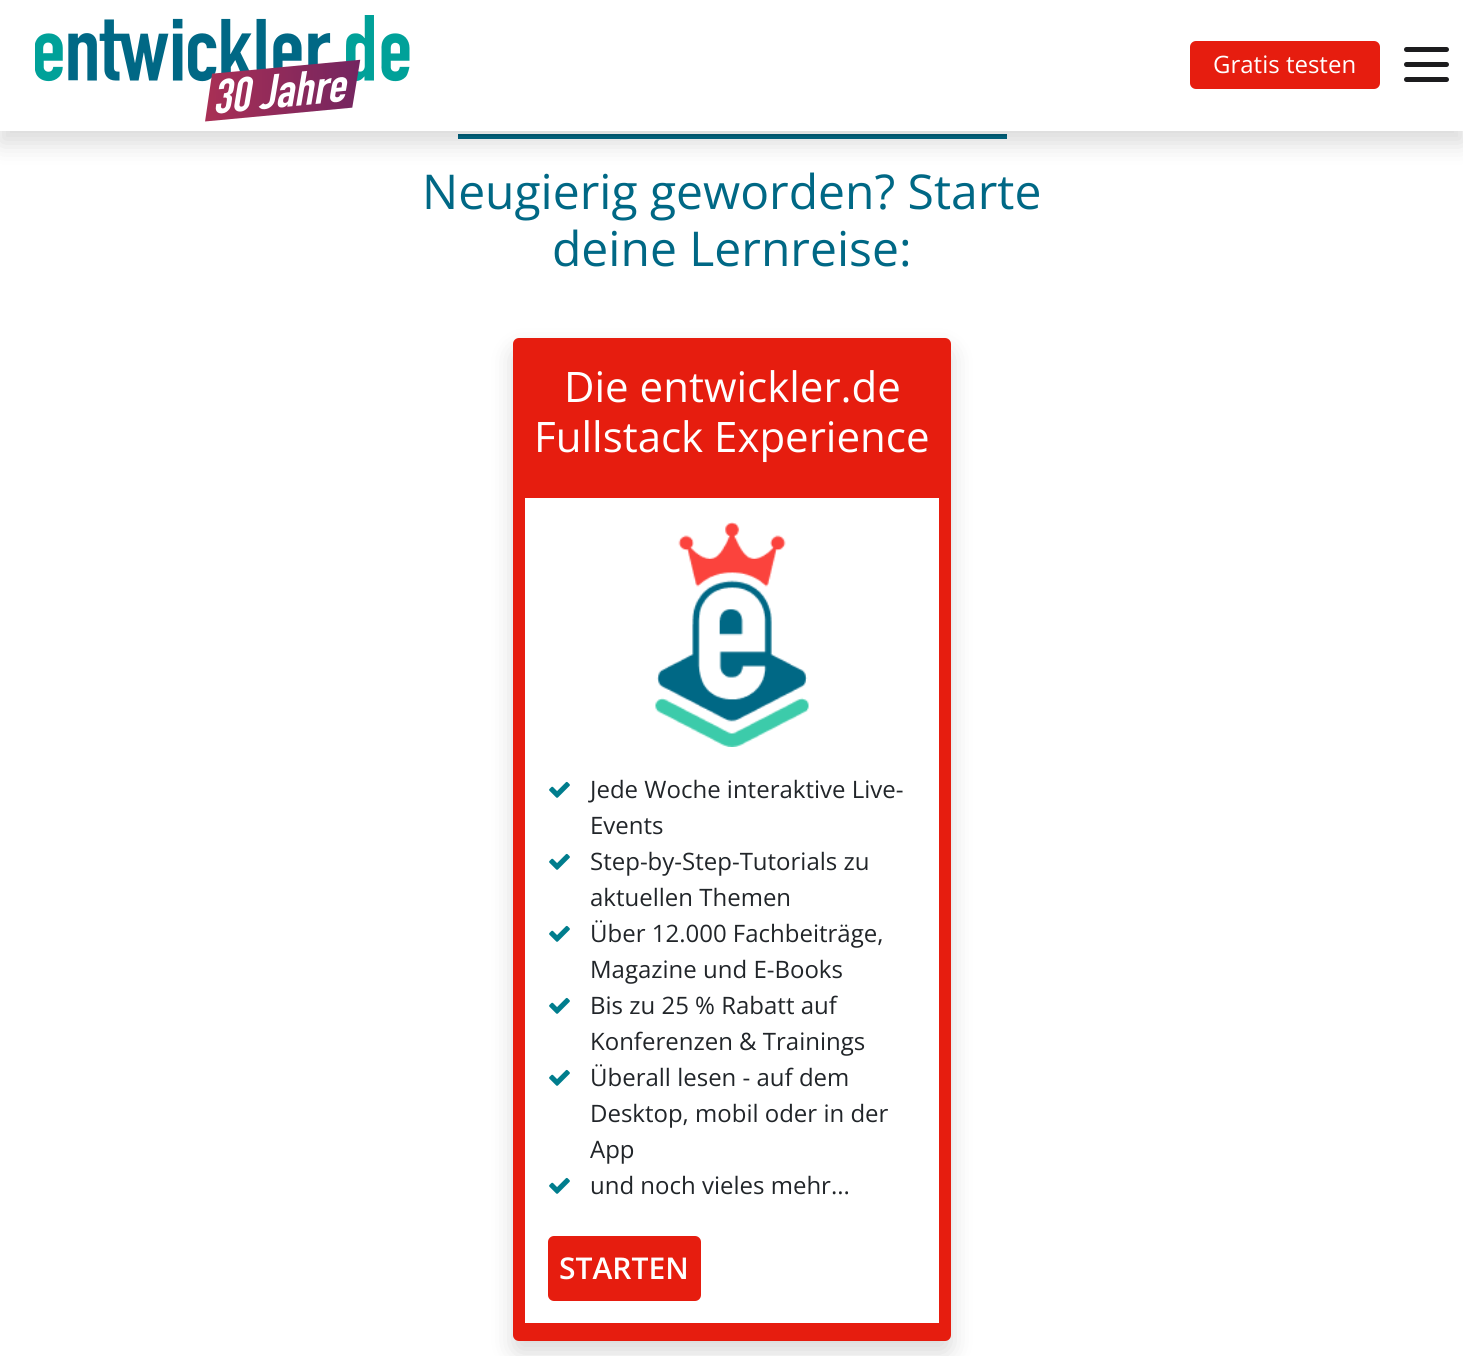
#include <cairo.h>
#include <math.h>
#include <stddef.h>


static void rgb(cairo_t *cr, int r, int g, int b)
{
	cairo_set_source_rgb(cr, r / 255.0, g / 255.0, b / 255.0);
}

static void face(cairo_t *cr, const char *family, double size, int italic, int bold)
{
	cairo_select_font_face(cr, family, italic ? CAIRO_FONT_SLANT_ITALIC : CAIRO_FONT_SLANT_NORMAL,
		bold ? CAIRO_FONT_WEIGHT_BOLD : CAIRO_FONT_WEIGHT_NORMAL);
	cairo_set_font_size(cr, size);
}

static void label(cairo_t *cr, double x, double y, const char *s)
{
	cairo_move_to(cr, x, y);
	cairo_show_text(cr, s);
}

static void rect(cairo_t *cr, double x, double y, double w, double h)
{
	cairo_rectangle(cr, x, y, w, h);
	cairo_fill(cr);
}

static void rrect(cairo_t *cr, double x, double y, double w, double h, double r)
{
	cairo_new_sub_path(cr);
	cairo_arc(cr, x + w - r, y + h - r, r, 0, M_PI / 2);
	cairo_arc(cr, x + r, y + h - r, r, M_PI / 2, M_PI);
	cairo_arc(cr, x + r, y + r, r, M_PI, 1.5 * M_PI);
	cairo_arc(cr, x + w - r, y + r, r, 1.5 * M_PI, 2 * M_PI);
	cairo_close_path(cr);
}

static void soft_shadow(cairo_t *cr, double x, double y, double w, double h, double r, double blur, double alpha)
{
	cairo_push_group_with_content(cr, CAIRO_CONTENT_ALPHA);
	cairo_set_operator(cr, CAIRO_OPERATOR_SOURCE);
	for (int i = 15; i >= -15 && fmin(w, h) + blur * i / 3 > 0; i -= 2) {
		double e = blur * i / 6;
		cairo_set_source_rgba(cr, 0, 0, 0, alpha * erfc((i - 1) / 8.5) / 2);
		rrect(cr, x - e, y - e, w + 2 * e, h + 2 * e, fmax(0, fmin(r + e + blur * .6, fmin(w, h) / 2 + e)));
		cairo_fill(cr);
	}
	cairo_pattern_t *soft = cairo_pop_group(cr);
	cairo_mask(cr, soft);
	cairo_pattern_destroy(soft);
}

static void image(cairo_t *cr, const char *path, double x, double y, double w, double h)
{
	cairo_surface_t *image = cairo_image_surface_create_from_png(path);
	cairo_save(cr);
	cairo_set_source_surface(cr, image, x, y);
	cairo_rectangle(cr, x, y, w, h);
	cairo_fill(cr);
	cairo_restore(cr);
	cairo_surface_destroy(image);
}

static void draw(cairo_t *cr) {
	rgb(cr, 255, 255, 255);
	cairo_paint(cr);
	rgb(cr, 0, 104, 133);
	rect(cr, 458, 136, 549, 3);
	rgb(cr, 0, 94, 120);
	rect(cr, 458, 134, 549, 2);
	rgb(cr, 0, 0, 0);
	soft_shadow(cr, 0, 12, 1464, 131, 0, 12, 0.15);
	rgb(cr, 255, 255, 255);
	rect(cr, 0, 0, 1463, 131);
	image(cr, "image0.png", 35, 15, 375, 107);
	rgb(cr, 230, 29, 15);
	rrect(cr, 1190, 41, 190, 48, 6);
	cairo_fill(cr);
	face(cr, "Open Sans", 24, 0, 0);
	rgb(cr, 255, 255, 255);
	label(cr, 1213, 73, "Gratis testen");
	rgb(cr, 28, 28, 30);
	rrect(cr, 1404, 47, 45, 5, 2.5);
	cairo_fill(cr);
	rrect(cr, 1404, 62, 45, 5, 2.5);
	cairo_fill(cr);
	rrect(cr, 1404, 77, 45, 5, 2.5);
	cairo_fill(cr);
	face(cr, "Open Sans", 48, 0, 0);
	rgb(cr, 0, 104, 133);
	label(cr, 422, 209, "Neugierig geworden? Starte");
	label(cr, 552, 266, "deine Lernreise:");
	rgb(cr, 0, 0, 0);
	soft_shadow(cr, 513, 350, 438, 1003, 6, 12, 0.15);
	rgb(cr, 230, 29, 15);
	rrect(cr, 513, 338, 438, 1003, 6);
	cairo_fill(cr);
	face(cr, "Open Sans", 42, 0, 0);
	rgb(cr, 255, 255, 255);
	label(cr, 564, 402, "Die entwickler.de");
	label(cr, 534, 452, "Fullstack Experience");
	rect(cr, 525, 498, 414, 825);
	image(cr, "image1.png", 655, 522, 154, 225);
	image(cr, "image2.png", 549, 781, 21, 17);
	face(cr, "Open Sans", 24, 0, 0);
	rgb(cr, 33, 37, 41);
	label(cr, 590, 798, "Jede Woche interaktive Live-");
	label(cr, 590, 834, "Events");
	image(cr, "image2.png", 549, 853, 21, 17);
	label(cr, 590, 870, "Step-by-Step-Tutorials zu");
	label(cr, 590, 906, "aktuellen Themen");
	image(cr, "image2.png", 549, 925, 21, 17);
	label(cr, 590, 942, "Über 12.000 Fachbeiträge,");
	label(cr, 590, 978, "Magazine und E-Books");
	image(cr, "image2.png", 549, 997, 21, 17);
	label(cr, 590, 1014, "Bis zu 25 % Rabatt auf");
	label(cr, 590, 1050, "Konferenzen & Trainings");
	image(cr, "image2.png", 549, 1069, 21, 17);
	label(cr, 590, 1086, "Überall lesen - auf dem");
	label(cr, 590, 1122, "Desktop, mobil oder in der");
	label(cr, 590, 1158, "App");
	image(cr, "image2.png", 549, 1177, 21, 17);
	label(cr, 590, 1194, "und noch vieles mehr...");
	rgb(cr, 230, 29, 15);
	rrect(cr, 548, 1236, 153, 65, 6);
	cairo_fill(cr);
	face(cr, "Open Sans SemiBold", 30, 0, 0);
	rgb(cr, 255, 255, 255);
	label(cr, 559, 1279, "STARTEN");
}

int main(void) {
	cairo_surface_t *surface = cairo_image_surface_create(CAIRO_FORMAT_RGB24, 1463, 1356);
	cairo_t *cr = cairo_create(surface);
	cairo_font_options_t *options = cairo_font_options_create();
	cairo_font_options_set_hint_metrics(options, CAIRO_HINT_METRICS_OFF);
	cairo_font_options_set_hint_style(options, CAIRO_HINT_STYLE_NONE);
	cairo_set_font_options(cr, options);
	cairo_set_miter_limit(cr, 4);
	draw(cr);
	cairo_surface_write_to_png(surface, "render.png");
	cairo_font_options_destroy(options);
	cairo_destroy(cr);
	cairo_surface_destroy(surface);
	return 0;
}
